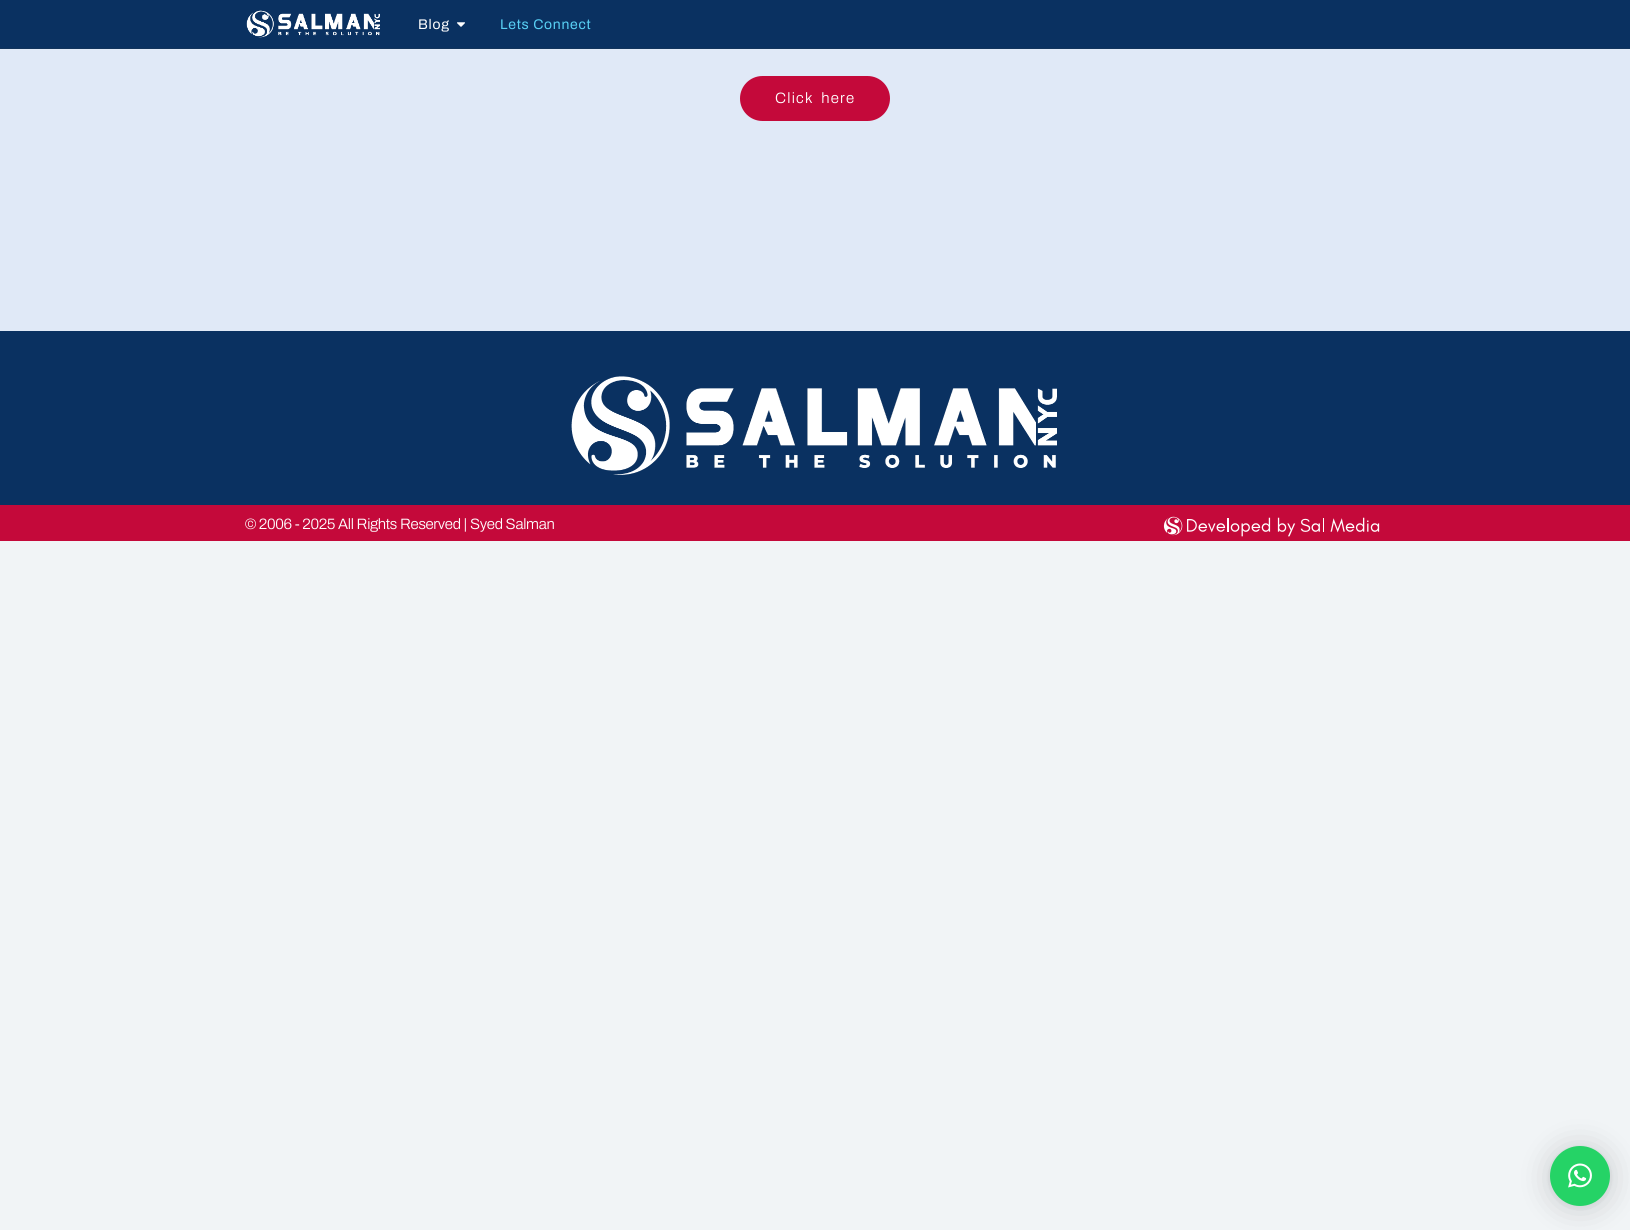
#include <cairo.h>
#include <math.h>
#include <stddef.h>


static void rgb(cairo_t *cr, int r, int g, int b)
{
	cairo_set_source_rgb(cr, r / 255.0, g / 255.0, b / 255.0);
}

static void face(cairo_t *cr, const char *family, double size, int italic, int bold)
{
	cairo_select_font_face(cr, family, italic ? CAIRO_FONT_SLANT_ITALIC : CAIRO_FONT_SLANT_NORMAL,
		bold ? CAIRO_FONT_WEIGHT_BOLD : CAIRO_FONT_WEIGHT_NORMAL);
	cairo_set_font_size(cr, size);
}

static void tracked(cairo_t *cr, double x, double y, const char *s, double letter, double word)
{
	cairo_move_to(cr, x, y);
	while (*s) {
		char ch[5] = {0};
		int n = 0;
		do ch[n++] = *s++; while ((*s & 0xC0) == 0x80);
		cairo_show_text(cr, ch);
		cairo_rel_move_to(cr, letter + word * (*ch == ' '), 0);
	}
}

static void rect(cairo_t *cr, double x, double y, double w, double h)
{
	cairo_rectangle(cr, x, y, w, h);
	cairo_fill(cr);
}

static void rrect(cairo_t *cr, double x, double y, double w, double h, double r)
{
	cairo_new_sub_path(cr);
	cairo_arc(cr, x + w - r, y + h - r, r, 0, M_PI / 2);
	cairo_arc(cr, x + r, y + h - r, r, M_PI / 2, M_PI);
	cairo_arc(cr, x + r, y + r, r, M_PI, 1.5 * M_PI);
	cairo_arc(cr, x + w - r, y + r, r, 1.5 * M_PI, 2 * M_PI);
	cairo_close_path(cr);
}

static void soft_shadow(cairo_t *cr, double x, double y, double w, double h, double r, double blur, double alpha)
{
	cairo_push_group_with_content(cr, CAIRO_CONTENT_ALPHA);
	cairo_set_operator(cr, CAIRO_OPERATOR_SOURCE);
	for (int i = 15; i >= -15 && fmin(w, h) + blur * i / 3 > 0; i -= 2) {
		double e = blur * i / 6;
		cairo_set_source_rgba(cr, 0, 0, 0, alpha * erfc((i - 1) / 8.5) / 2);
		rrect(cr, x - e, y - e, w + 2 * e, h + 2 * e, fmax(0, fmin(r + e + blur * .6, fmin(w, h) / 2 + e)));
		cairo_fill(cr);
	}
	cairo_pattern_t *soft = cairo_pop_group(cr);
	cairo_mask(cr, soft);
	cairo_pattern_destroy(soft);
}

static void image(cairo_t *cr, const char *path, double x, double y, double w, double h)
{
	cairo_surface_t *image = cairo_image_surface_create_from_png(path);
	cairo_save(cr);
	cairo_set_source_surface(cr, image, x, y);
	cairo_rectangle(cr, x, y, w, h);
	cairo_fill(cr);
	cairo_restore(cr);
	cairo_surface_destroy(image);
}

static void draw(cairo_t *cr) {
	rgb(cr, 241, 244, 246);
	cairo_paint(cr);
	rgb(cr, 10, 49, 97);
	rect(cr, 0, 0, 1630, 48);
	rgb(cr, 18, 52, 92);
	rect(cr, 0, 48, 1630, 1);
	image(cr, "image0.png", 246, 10, 134, 28);
	face(cr, "Archivo", 14, 0, 0);
	rgb(cr, 255, 255, 255);
	tracked(cr, 418, 29, "Blog", 0.75, 0);
	image(cr, "image1.png", 457, 22, 8, 5);
	rgb(cr, 88, 208, 245);
	tracked(cr, 500, 29, "Lets Connect", 0.75, 0);
	rgb(cr, 224, 233, 247);
	rect(cr, 0, 49, 1630, 282);
	rgb(cr, 196, 9, 58);
	rrect(cr, 740, 76, 150, 45, 22.5);
	cairo_fill(cr);
	face(cr, "Archivo Light", 15, 0, 0);
	rgb(cr, 255, 255, 255);
	tracked(cr, 775, 103, "Click here", 1.25, 3);
	rgb(cr, 10, 49, 97);
	rect(cr, 0, 331, 1630, 174);
	image(cr, "image2.png", 571, 376, 486, 99);
	rgb(cr, 196, 9, 58);
	rect(cr, 0, 505, 1630, 36);
	rgb(cr, 255, 255, 255);
	tracked(cr, 245, 529, "© 2006 - 2025 All Rights Reserved | Syed Salman", -0.3, 0);
	image(cr, "image3.png", 1163, 516, 217, 21);
	rgb(cr, 0, 0, 0);
	soft_shadow(cr, 1550, 1148, 60, 60, 30, 16, 0.16);
	soft_shadow(cr, 1550, 1147, 60, 60, 30, 3, 0.06);
	rgb(cr, 37, 211, 102);
	cairo_arc(cr, 1580, 1176, 30, 0, 2 * M_PI);
	cairo_fill(cr);
	image(cr, "image4.png", 1568, 1163, 24, 25);
}

int main(void) {
	cairo_surface_t *surface = cairo_image_surface_create(CAIRO_FORMAT_RGB24, 1630, 1230);
	cairo_t *cr = cairo_create(surface);
	cairo_font_options_t *options = cairo_font_options_create();
	cairo_font_options_set_hint_metrics(options, CAIRO_HINT_METRICS_OFF);
	cairo_font_options_set_hint_style(options, CAIRO_HINT_STYLE_NONE);
	cairo_set_font_options(cr, options);
	cairo_set_miter_limit(cr, 4);
	draw(cr);
	cairo_surface_write_to_png(surface, "render.png");
	cairo_font_options_destroy(options);
	cairo_destroy(cr);
	cairo_surface_destroy(surface);
	return 0;
}
